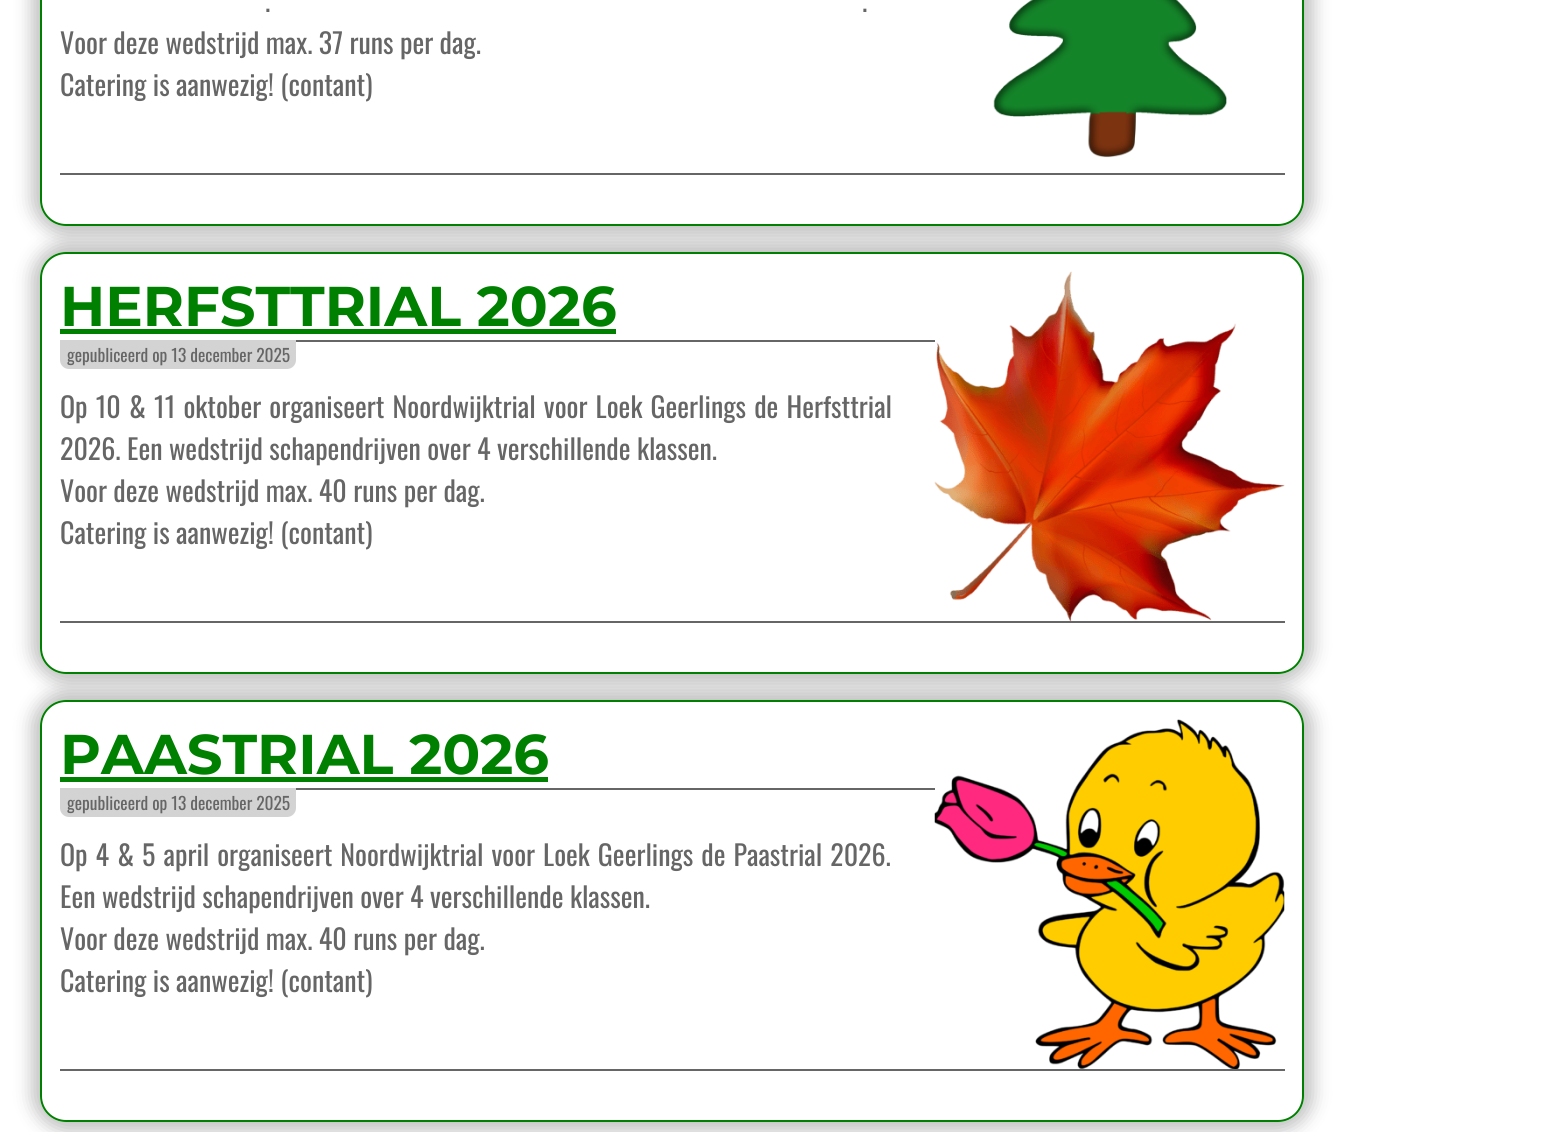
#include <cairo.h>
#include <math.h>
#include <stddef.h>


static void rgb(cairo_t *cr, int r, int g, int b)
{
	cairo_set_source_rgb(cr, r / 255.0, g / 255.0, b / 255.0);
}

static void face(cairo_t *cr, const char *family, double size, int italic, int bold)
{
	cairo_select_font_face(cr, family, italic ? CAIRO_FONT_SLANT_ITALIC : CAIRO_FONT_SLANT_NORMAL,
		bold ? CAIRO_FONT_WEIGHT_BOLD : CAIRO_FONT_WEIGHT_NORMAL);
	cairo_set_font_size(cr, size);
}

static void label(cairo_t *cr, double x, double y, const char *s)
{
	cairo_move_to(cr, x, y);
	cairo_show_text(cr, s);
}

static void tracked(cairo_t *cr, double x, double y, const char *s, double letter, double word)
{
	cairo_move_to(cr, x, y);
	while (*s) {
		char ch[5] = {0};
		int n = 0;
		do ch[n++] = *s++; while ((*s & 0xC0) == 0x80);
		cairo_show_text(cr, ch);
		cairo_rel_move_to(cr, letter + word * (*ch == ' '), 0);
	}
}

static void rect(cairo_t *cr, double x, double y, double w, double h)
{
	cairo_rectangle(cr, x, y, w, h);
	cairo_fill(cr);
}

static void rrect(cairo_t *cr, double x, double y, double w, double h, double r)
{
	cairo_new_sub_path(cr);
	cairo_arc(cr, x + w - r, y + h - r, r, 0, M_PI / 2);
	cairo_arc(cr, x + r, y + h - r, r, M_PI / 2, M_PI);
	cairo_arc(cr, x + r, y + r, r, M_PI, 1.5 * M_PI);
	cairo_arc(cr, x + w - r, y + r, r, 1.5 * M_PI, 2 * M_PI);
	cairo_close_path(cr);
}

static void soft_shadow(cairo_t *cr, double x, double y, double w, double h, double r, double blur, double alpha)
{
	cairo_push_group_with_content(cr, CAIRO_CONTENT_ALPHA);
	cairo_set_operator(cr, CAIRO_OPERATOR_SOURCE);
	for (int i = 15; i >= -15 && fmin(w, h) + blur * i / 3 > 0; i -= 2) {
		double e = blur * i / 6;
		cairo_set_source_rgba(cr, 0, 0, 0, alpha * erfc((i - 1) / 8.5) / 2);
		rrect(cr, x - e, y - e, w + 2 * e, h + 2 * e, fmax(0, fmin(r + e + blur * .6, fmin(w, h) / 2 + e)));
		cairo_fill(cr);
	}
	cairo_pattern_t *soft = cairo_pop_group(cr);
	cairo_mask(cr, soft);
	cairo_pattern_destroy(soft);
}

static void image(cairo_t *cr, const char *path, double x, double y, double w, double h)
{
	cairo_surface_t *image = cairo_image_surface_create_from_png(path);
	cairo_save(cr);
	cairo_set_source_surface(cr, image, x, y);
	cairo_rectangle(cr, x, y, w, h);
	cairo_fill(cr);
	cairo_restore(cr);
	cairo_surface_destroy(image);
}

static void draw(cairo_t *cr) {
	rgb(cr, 255, 255, 255);
	cairo_paint(cr);
	cairo_save(cr);
	cairo_set_fill_rule(cr, CAIRO_FILL_RULE_EVEN_ODD);
	cairo_new_path(cr);
	cairo_move_to(cr, 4, 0);
	cairo_line_to(cr, 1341, 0);
	cairo_line_to(cr, 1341, 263);
	cairo_line_to(cr, 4, 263);
	cairo_close_path(cr);
	cairo_move_to(cr, 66, -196);
	cairo_line_to(cr, 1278, -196);
	cairo_curve_to(cr, 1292.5, -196, 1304, -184.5, 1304, -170);
	cairo_line_to(cr, 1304, 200);
	cairo_curve_to(cr, 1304, 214.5, 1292.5, 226, 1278, 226);
	cairo_line_to(cr, 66, 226);
	cairo_curve_to(cr, 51.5, 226, 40, 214.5, 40, 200);
	cairo_line_to(cr, 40, -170);
	cairo_curve_to(cr, 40, -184.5, 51.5, -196, 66, -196);
	cairo_close_path(cr);
	cairo_clip(cr);
	rgb(cr, 128, 128, 128);
	soft_shadow(cr, 32, -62, 1281, 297, 35, 9, 0.5);
	cairo_restore(cr);
	rrect(cr, 41, -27, 1262, 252, 25);
	rgb(cr, 0, 128, 0);
	cairo_stroke(cr);
	face(cr, "Oswald", 28, 0, 0);
	rgb(cr, 102, 102, 102);
	label(cr, 265, 12, ".");
	label(cr, 862, 12, ".");
	label(cr, 60, 54, "Voor deze wedstrijd max. 37 runs per dag.");
	label(cr, 60, 96, "Catering is aanwezig! (contant)");
	image(cr, "image0.png", 993, 0, 234, 158);
	rect(cr, 60, 173, 1225, 2);
	cairo_save(cr);
	cairo_set_fill_rule(cr, CAIRO_FILL_RULE_EVEN_ODD);
	cairo_new_path(cr);
	cairo_move_to(cr, 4, 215);
	cairo_line_to(cr, 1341, 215);
	cairo_line_to(cr, 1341, 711);
	cairo_line_to(cr, 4, 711);
	cairo_close_path(cr);
	cairo_move_to(cr, 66, 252);
	cairo_line_to(cr, 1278, 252);
	cairo_curve_to(cr, 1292.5, 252, 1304, 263.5, 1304, 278);
	cairo_line_to(cr, 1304, 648);
	cairo_curve_to(cr, 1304, 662.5, 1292.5, 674, 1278, 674);
	cairo_line_to(cr, 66, 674);
	cairo_curve_to(cr, 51.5, 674, 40, 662.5, 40, 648);
	cairo_line_to(cr, 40, 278);
	cairo_curve_to(cr, 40, 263.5, 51.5, 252, 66, 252);
	cairo_close_path(cr);
	cairo_clip(cr);
	rgb(cr, 128, 128, 128);
	soft_shadow(cr, 32, 243, 1281, 440, 35, 9, 0.5);
	cairo_restore(cr);
	rrect(cr, 41, 253, 1262, 420, 25);
	rgb(cr, 0, 128, 0);
	cairo_stroke(cr);
	rgb(cr, 102, 102, 102);
	rect(cr, 296, 340, 639, 2);
	face(cr, "Montserrat", 56, 0, 1);
	rgb(cr, 0, 128, 0);
	label(cr, 60, 326, "HERFSTTRIAL 2026");
	rect(cr, 60, 329, 556, 5);
	image(cr, "image1.png", 934, 271, 351, 350);
	rgb(cr, 211, 211, 211);
	cairo_new_path(cr);
	cairo_move_to(cr, 60, 340);
	cairo_line_to(cr, 296, 340);
	cairo_line_to(cr, 296, 360);
	cairo_curve_to(cr, 296, 365, 292, 369, 287, 369);
	cairo_line_to(cr, 69, 369);
	cairo_curve_to(cr, 64, 369, 60, 365, 60, 360);
	cairo_close_path(cr);
	cairo_fill(cr);
	face(cr, "Oswald", 17.4, 0, 0);
	rgb(cr, 102, 102, 102);
	label(cr, 67, 362, "gepubliceerd op 13 december 2025");
	face(cr, "Oswald", 28, 0, 0);
	tracked(cr, 60, 418, "Op 10 & 11 oktober organiseert Noordwijktrial voor Loek Geerlings de Herfsttrial", 0, 1.75);
	label(cr, 60, 460, "2026. Een wedstrijd schapendrijven over 4 verschillende klassen.");
	label(cr, 60, 502, "Voor deze wedstrijd max. 40 runs per dag.");
	label(cr, 60, 544, "Catering is aanwezig! (contant)");
	rect(cr, 60, 621, 1225, 2);
	cairo_save(cr);
	cairo_set_fill_rule(cr, CAIRO_FILL_RULE_EVEN_ODD);
	cairo_new_path(cr);
	cairo_move_to(cr, 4, 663);
	cairo_line_to(cr, 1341, 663);
	cairo_line_to(cr, 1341, 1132);
	cairo_line_to(cr, 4, 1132);
	cairo_close_path(cr);
	cairo_move_to(cr, 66, 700);
	cairo_line_to(cr, 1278, 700);
	cairo_curve_to(cr, 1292.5, 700, 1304, 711.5, 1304, 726);
	cairo_line_to(cr, 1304, 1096);
	cairo_curve_to(cr, 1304, 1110.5, 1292.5, 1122, 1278, 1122);
	cairo_line_to(cr, 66, 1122);
	cairo_curve_to(cr, 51.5, 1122, 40, 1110.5, 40, 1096);
	cairo_line_to(cr, 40, 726);
	cairo_curve_to(cr, 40, 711.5, 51.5, 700, 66, 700);
	cairo_close_path(cr);
	cairo_clip(cr);
	rgb(cr, 128, 128, 128);
	soft_shadow(cr, 32, 691, 1281, 440, 35, 9, 0.5);
	cairo_restore(cr);
	rrect(cr, 41, 701, 1262, 420, 25);
	rgb(cr, 0, 128, 0);
	cairo_stroke(cr);
	rgb(cr, 102, 102, 102);
	rect(cr, 296, 788, 639, 2);
	face(cr, "Montserrat", 56, 0, 1);
	rgb(cr, 0, 128, 0);
	label(cr, 60, 774, "PAASTRIAL 2026");
	rect(cr, 60, 777, 488, 5);
	image(cr, "image2.png", 934, 719, 351, 350);
	rgb(cr, 211, 211, 211);
	cairo_new_path(cr);
	cairo_move_to(cr, 60, 788);
	cairo_line_to(cr, 296, 788);
	cairo_line_to(cr, 296, 808);
	cairo_curve_to(cr, 296, 813, 292, 817, 287, 817);
	cairo_line_to(cr, 69, 817);
	cairo_curve_to(cr, 64, 817, 60, 813, 60, 808);
	cairo_close_path(cr);
	cairo_fill(cr);
	face(cr, "Oswald", 17.4, 0, 0);
	rgb(cr, 102, 102, 102);
	label(cr, 67, 810, "gepubliceerd op 13 december 2025");
	face(cr, "Oswald", 28, 0, 0);
	tracked(cr, 60, 866, "Op 4 & 5 april organiseert Noordwijktrial voor Loek Geerlings de Paastrial 2026.", 0, 1.6);
	label(cr, 60, 908, "Een wedstrijd schapendrijven over 4 verschillende klassen.");
	label(cr, 60, 950, "Voor deze wedstrijd max. 40 runs per dag.");
	label(cr, 60, 992, "Catering is aanwezig! (contant)");
	rect(cr, 60, 1069, 1225, 2);
}

int main(void) {
	cairo_surface_t *surface = cairo_image_surface_create(CAIRO_FORMAT_RGB24, 1555, 1132);
	cairo_t *cr = cairo_create(surface);
	cairo_font_options_t *options = cairo_font_options_create();
	cairo_font_options_set_hint_metrics(options, CAIRO_HINT_METRICS_OFF);
	cairo_font_options_set_hint_style(options, CAIRO_HINT_STYLE_NONE);
	cairo_set_font_options(cr, options);
	cairo_set_miter_limit(cr, 4);
	draw(cr);
	cairo_surface_write_to_png(surface, "render.png");
	cairo_font_options_destroy(options);
	cairo_destroy(cr);
	cairo_surface_destroy(surface);
	return 0;
}
